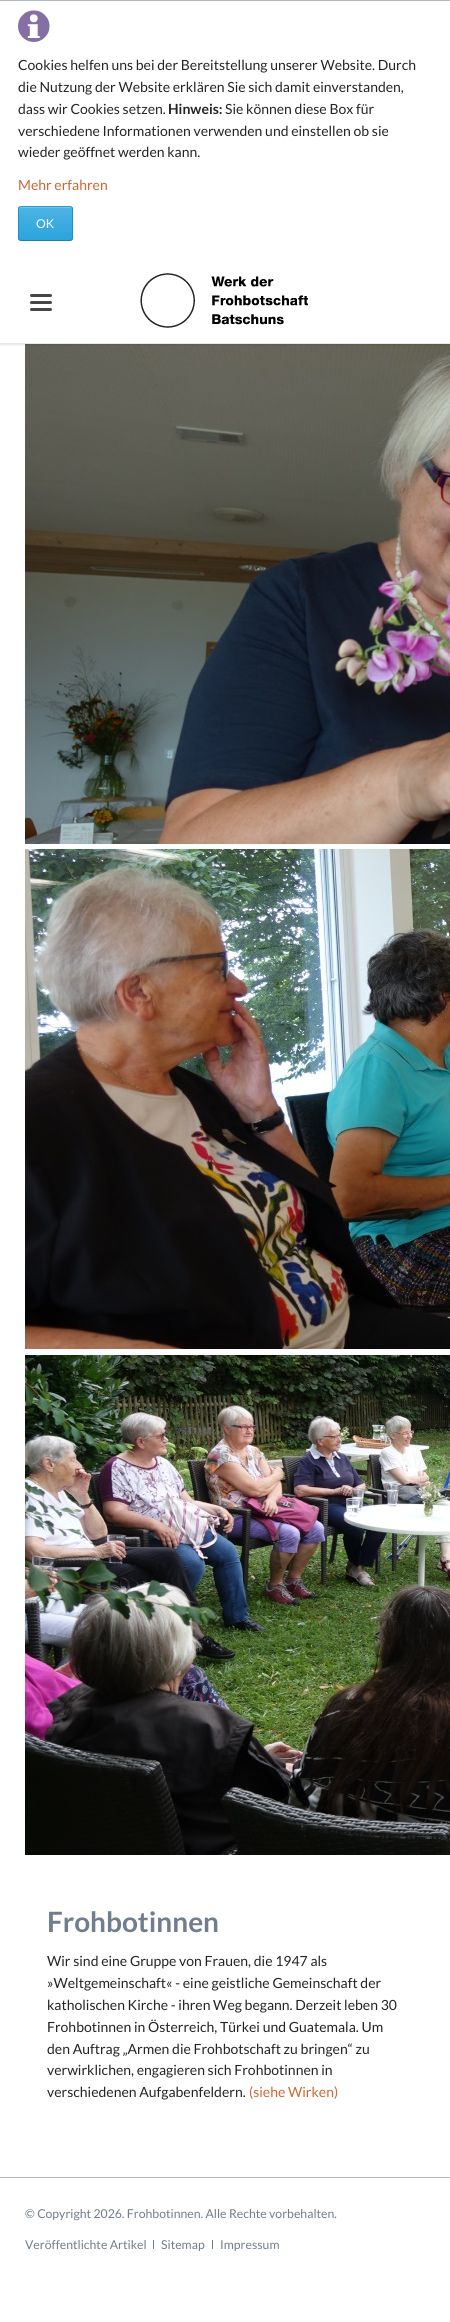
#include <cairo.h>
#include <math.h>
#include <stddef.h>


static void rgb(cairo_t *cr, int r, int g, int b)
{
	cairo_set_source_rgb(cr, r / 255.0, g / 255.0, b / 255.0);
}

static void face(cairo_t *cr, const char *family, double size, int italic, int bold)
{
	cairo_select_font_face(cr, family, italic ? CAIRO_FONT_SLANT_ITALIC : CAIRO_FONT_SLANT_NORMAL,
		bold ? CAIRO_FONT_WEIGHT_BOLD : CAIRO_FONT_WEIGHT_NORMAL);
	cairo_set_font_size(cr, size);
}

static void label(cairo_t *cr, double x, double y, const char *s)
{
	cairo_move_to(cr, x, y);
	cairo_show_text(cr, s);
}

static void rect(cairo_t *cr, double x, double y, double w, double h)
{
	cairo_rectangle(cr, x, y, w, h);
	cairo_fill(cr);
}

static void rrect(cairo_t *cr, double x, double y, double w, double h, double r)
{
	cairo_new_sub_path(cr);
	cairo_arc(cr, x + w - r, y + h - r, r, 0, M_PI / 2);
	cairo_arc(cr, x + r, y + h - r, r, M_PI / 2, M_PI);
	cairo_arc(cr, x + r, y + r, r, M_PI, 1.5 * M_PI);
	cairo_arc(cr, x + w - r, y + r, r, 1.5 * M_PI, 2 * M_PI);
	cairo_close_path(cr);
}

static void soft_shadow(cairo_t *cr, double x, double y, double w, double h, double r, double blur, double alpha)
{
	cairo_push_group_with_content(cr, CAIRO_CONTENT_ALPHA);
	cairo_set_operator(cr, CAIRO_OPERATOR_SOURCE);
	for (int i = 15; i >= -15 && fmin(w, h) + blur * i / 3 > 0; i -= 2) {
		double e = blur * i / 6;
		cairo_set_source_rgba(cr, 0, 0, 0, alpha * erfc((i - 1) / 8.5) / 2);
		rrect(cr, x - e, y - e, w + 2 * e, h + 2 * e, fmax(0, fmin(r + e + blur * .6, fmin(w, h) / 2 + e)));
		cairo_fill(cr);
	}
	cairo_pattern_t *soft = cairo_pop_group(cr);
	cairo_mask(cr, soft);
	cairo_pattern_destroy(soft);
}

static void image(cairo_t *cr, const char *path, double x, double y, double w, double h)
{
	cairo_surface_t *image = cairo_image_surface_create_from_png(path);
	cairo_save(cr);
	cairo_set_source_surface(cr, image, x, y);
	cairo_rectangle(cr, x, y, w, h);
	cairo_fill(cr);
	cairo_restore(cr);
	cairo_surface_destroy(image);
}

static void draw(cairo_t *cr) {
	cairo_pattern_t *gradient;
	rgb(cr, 255, 255, 255);
	cairo_paint(cr);
	rgb(cr, 178, 185, 196);
	rect(cr, 0, 0, 450, 1);
	image(cr, "image0.png", 18, 10, 32, 32);
	face(cr, "Lato", 14, 0, 0);
	rgb(cr, 36, 36, 36);
	label(cr, 18, 70, "Cookies helfen uns bei der Bereitstellung unserer Website. Durch");
	label(cr, 18, 92, "die Nutzung der Website erklären Sie sich damit einverstanden,");
	label(cr, 18, 114, "dass wir Cookies setzen.");
	face(cr, "Lato", 14, 0, 1);
	label(cr, 168, 114, "Hinweis:");
	face(cr, "Lato", 14, 0, 0);
	label(cr, 225, 114, "Sie können diese Box für");
	label(cr, 18, 136, "verschiedene Informationen verwenden und einstellen ob sie");
	label(cr, 18, 157, "wieder geöffnet werden kann.");
	rgb(cr, 204, 102, 51);
	label(cr, 18, 190, "Mehr erfahren");
	cairo_save(cr);
	rrect(cr, 18, 206, 55, 35, 3);
	cairo_clip(cr);
	gradient = cairo_pattern_create_linear(46, 207, 46, 240);
	cairo_pattern_add_color_stop_rgba(gradient, 0, 0.302, 0.702, 0.89, 1);
	cairo_pattern_add_color_stop_rgba(gradient, 1, 0.165, 0.643, 0.867, 1);
	cairo_set_source(cr, gradient);
	cairo_pattern_destroy(gradient);
	rect(cr, 18, 207, 55, 33);
	cairo_restore(cr);
	rgb(cr, 115, 195, 232);
	cairo_new_path(cr);
	cairo_move_to(cr, 21, 208);
	cairo_line_to(cr, 70, 208);
	cairo_curve_to(cr, 71, 208, 72, 209, 72, 210);
	cairo_curve_to(cr, 72, 205, 66, 207, 62, 207);
	cairo_line_to(cr, 29, 207);
	cairo_curve_to(cr, 25, 207, 19, 205, 19, 210);
	cairo_curve_to(cr, 19, 209, 20, 208, 21, 208);
	cairo_close_path(cr);
	cairo_fill(cr);
	cairo_new_path(cr);
	cairo_move_to(cr, 19, 207);
	cairo_line_to(cr, 21, 206.5);
	cairo_line_to(cr, 70, 206.5);
	cairo_line_to(cr, 72, 207);
	rgb(cr, 35, 160, 218);
	cairo_set_line_width(cr, 1);
	cairo_stroke(cr);
	cairo_new_path(cr);
	cairo_move_to(cr, 72, 207);
	cairo_curve_to(cr, 72, 207.5, 72.5, 208.5, 72.5, 209);
	cairo_line_to(cr, 72.5, 238);
	cairo_curve_to(cr, 72.5, 238.5, 72, 239.5, 72, 240);
	rgb(cr, 31, 144, 196);
	cairo_stroke(cr);
	cairo_new_path(cr);
	cairo_move_to(cr, 72, 240);
	cairo_line_to(cr, 70, 240.5);
	cairo_line_to(cr, 21, 240.5);
	cairo_line_to(cr, 19, 240);
	rgb(cr, 28, 128, 174);
	cairo_stroke(cr);
	cairo_new_path(cr);
	cairo_move_to(cr, 19, 240);
	cairo_curve_to(cr, 19, 239.5, 18.5, 238.5, 18.5, 238);
	cairo_line_to(cr, 18.5, 209);
	cairo_curve_to(cr, 18.5, 208.5, 19, 207.5, 19, 207);
	rgb(cr, 31, 144, 196);
	cairo_stroke(cr);
	face(cr, "Lato", 12.25, 0, 0);
	rgb(cr, 255, 255, 255);
	label(cr, 36, 228, "OK");
	image(cr, "image2.png", 25, 344, 425, 500);
	cairo_save(cr);
	cairo_rectangle(cr, 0, 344, 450, 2);
	cairo_clip(cr);
	rgb(cr, 0, 0, 0);
	soft_shadow(cr, 0, 263, 450, 82, 0, 1, 0.1);
	cairo_restore(cr);
	rgb(cr, 229, 232, 238);
	rect(cr, 0, 343, 450, 1);
	image(cr, "image1.png", 140, 273, 168, 55);
	rgb(cr, 69, 70, 71);
	rrect(cr, 30, 308, 22, 3, 1.5);
	cairo_fill(cr);
	rrect(cr, 30, 301, 22, 3, 1.5);
	cairo_fill(cr);
	rrect(cr, 30, 294, 22, 3, 1.5);
	cairo_fill(cr);
	image(cr, "image3.png", 25, 849, 425, 500);
	image(cr, "image4.png", 25, 1355, 425, 500);
	face(cr, "Lato", 28, 0, 1);
	rgb(cr, 113, 124, 142);
	label(cr, 47, 1932, "Frohbotinnen");
	face(cr, "Lato", 14, 0, 0);
	rgb(cr, 36, 36, 36);
	label(cr, 47, 1966, "Wir sind eine Gruppe von Frauen, die 1947 als");
	label(cr, 47, 1988, "»Weltgemeinschaft« - eine geistliche Gemeinschaft der");
	label(cr, 47, 2010, "katholischen Kirche - ihren Weg begann. Derzeit leben 30");
	label(cr, 47, 2032, "Frohbotinnen in Österreich, Türkei und Guatemala. Um");
	label(cr, 47, 2054, "den Auftrag „Armen die Frohbotschaft zu bringen“ zu");
	label(cr, 47, 2075, "verwirklichen, engagieren sich Frohbotinnen in");
	label(cr, 47, 2097, "verschiedenen Aufgabenfeldern.");
	rgb(cr, 204, 102, 51);
	label(cr, 249, 2097, "(siehe Wirken)");
	rgb(cr, 178, 185, 196);
	rect(cr, 0, 2177, 450, 1);
	face(cr, "Lato", 12.25, 0, 0);
	rgb(cr, 113, 124, 142);
	label(cr, 25, 2218, "© Copyright 2026. Frohbotinnen. Alle Rechte vorbehalten.");
	label(cr, 25, 2249, "Veröffentlichte Artikel");
	rect(cr, 153, 2240, 1, 9);
	label(cr, 161, 2249, "Sitemap");
	rect(cr, 212, 2240, 1, 9);
	label(cr, 220, 2249, "Impressum");
}

int main(void) {
	cairo_surface_t *surface = cairo_image_surface_create(CAIRO_FORMAT_RGB24, 450, 2322);
	cairo_t *cr = cairo_create(surface);
	cairo_font_options_t *options = cairo_font_options_create();
	cairo_font_options_set_hint_metrics(options, CAIRO_HINT_METRICS_OFF);
	cairo_font_options_set_hint_style(options, CAIRO_HINT_STYLE_NONE);
	cairo_set_font_options(cr, options);
	cairo_set_miter_limit(cr, 4);
	draw(cr);
	cairo_surface_write_to_png(surface, "render.png");
	cairo_font_options_destroy(options);
	cairo_destroy(cr);
	cairo_surface_destroy(surface);
	return 0;
}
